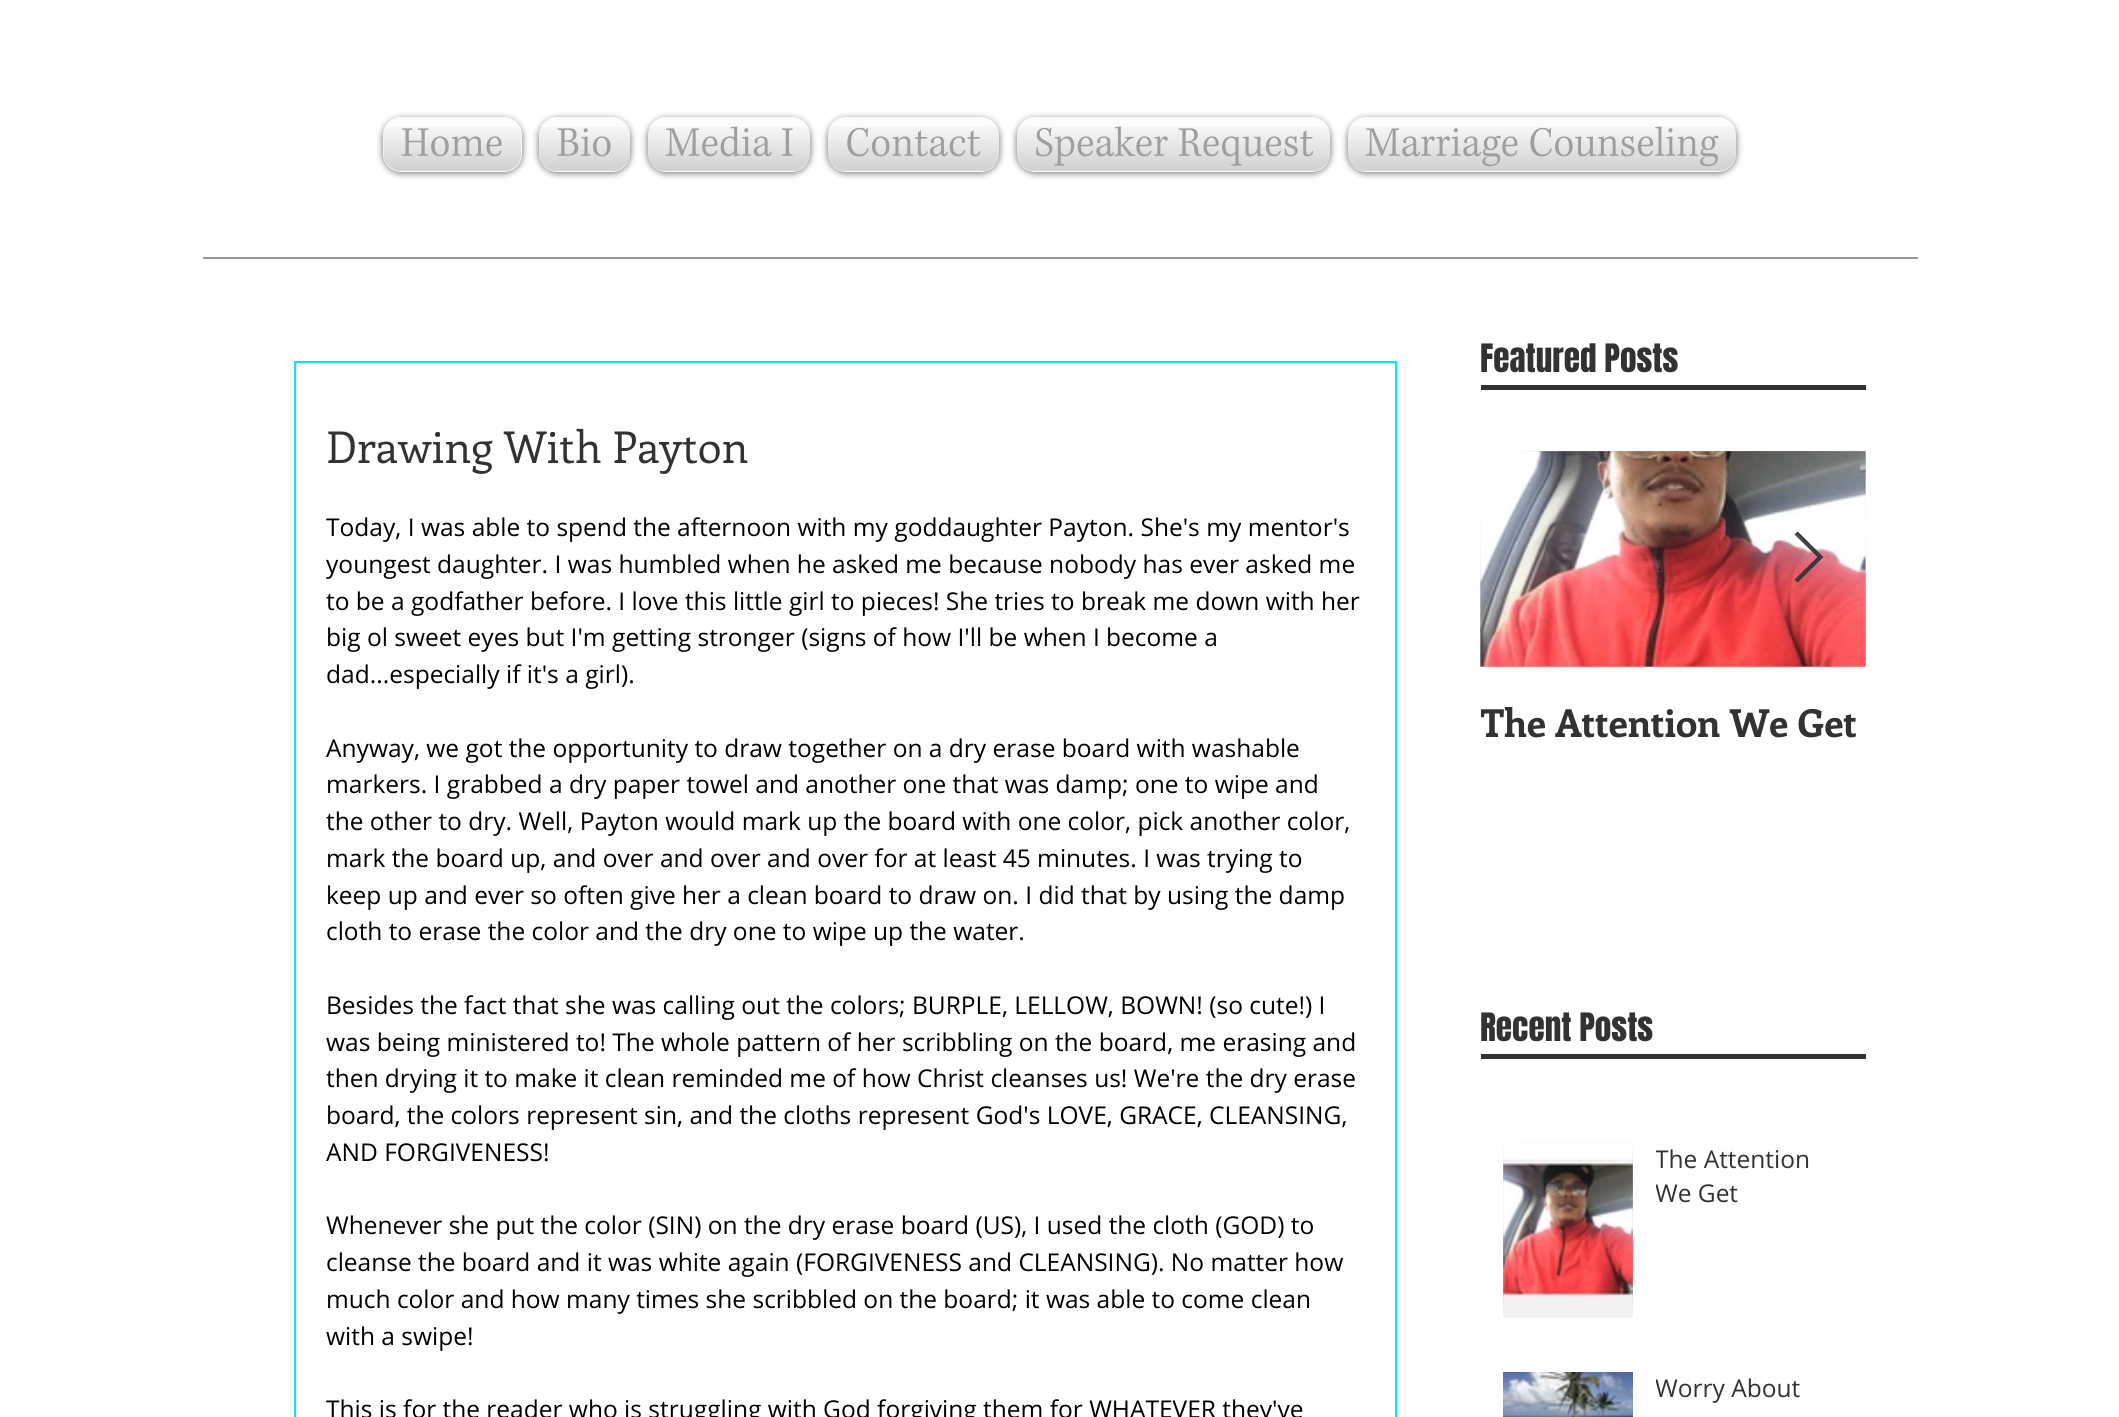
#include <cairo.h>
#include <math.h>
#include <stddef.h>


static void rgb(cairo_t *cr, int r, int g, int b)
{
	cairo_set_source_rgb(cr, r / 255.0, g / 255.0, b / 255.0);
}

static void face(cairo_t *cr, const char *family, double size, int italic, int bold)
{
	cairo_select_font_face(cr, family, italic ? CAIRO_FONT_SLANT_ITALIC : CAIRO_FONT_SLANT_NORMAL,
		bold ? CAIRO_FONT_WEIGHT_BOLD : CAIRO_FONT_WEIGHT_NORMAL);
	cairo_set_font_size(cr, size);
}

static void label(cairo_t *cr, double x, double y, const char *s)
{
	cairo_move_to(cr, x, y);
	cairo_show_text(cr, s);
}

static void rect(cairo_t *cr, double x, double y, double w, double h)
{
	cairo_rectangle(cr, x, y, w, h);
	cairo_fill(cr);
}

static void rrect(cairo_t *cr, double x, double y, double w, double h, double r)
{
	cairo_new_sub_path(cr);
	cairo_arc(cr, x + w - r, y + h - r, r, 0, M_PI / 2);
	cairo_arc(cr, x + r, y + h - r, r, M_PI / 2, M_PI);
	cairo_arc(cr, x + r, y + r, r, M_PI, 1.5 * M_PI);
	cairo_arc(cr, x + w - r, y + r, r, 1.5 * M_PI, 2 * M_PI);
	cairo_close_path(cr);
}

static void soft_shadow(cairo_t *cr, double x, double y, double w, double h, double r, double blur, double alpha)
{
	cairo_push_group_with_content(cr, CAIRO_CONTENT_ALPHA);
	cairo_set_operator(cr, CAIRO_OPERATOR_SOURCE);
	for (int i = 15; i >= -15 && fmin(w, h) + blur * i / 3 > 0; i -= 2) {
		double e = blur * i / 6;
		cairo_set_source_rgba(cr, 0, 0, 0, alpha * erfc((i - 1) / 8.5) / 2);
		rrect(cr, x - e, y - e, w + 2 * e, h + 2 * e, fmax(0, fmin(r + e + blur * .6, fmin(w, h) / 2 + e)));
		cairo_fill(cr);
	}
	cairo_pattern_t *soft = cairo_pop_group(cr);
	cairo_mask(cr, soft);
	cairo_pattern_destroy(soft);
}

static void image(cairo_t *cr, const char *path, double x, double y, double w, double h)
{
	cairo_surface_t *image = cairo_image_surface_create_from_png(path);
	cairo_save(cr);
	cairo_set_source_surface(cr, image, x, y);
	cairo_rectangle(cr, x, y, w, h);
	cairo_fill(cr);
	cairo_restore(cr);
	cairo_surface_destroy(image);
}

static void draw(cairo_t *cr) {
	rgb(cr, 255, 255, 255);
	cairo_paint(cr);
	rgb(cr, 0, 0, 0);
	soft_shadow(cr, 383, 119, 139, 54, 18, 3.5, 0.6);
	rgb(cr, 252, 252, 252);
	rrect(cr, 383, 117, 139, 55, 18);
	cairo_fill(cr);
	image(cr, "image0.png", 383, 127, 138, 44);
	image(cr, "image1.png", 401, 128, 101, 29);
	rgb(cr, 0, 0, 0);
	soft_shadow(cr, 539, 119, 91, 54, 18, 3.5, 0.6);
	rgb(cr, 252, 252, 252);
	rrect(cr, 539, 117, 91, 55, 18);
	cairo_fill(cr);
	image(cr, "image2.png", 539, 127, 91, 44);
	image(cr, "image3.png", 557, 128, 54, 29);
	rgb(cr, 0, 0, 0);
	soft_shadow(cr, 648, 119, 162, 54, 18, 3.5, 0.6);
	rgb(cr, 252, 252, 252);
	rrect(cr, 648, 117, 162, 55, 18);
	cairo_fill(cr);
	image(cr, "image4.png", 648, 127, 162, 44);
	image(cr, "image5.png", 665, 126, 128, 31);
	rgb(cr, 0, 0, 0);
	soft_shadow(cr, 828, 119, 171, 54, 18, 3.5, 0.6);
	rgb(cr, 252, 252, 252);
	rrect(cr, 828, 117, 171, 55, 18);
	cairo_fill(cr);
	image(cr, "image6.png", 828, 127, 171, 44);
	image(cr, "image7.png", 847, 127, 134, 30);
	rgb(cr, 0, 0, 0);
	soft_shadow(cr, 1017, 119, 313, 54, 18, 3.5, 0.6);
	rgb(cr, 252, 252, 252);
	rrect(cr, 1017, 117, 313, 55, 18);
	cairo_fill(cr);
	image(cr, "image8.png", 1017, 127, 313, 44);
	image(cr, "image9.png", 1036, 126, 278, 40);
	rgb(cr, 0, 0, 0);
	soft_shadow(cr, 1348, 119, 388, 54, 18, 3.5, 0.6);
	rgb(cr, 252, 252, 252);
	rrect(cr, 1348, 117, 388, 55, 18);
	cairo_fill(cr);
	image(cr, "image10.png", 1348, 127, 388, 44);
	image(cr, "image11.png", 1365, 126, 354, 41);
	rgb(cr, 151, 151, 151);
	rect(cr, 203, 257, 1715, 2);
	cairo_rectangle(cr, 295, 362, 1101, 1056);
	rgb(cr, 0, 233, 255);
	cairo_stroke(cr);
	face(cr, "Enriqueta", 43.75, 0, 0);
	rgb(cr, 50, 50, 50);
	label(cr, 326, 463, "Drawing With Payton");
	face(cr, "Open Sans", 24.5, 0, 0);
	rgb(cr, 0, 0, 0);
	label(cr, 326, 536, "Today, I was able to spend the afternoon with my goddaughter Payton. She's my mentor's");
	label(cr, 326, 573, "youngest daughter. I was humbled when he asked me because nobody has ever asked me");
	label(cr, 326, 610, "to be a godfather before. I love this little girl to pieces! She tries to break me down with her");
	label(cr, 326, 646, "big ol sweet eyes but I'm getting stronger (signs of how I'll be when I become a");
	label(cr, 326, 683, "dad...especially if it's a girl).");
	label(cr, 326, 757, "Anyway, we got the opportunity to draw together on a dry erase board with washable");
	label(cr, 326, 793, "markers. I grabbed a dry paper towel and another one that was damp; one to wipe and");
	label(cr, 326, 830, "the other to dry. Well, Payton would mark up the board with one color, pick another color,");
	label(cr, 326, 867, "mark the board up, and over and over and over for at least 45 minutes. I was trying to");
	label(cr, 326, 904, "keep up and ever so often give her a clean board to draw on. I did that by using the damp");
	label(cr, 326, 940, "cloth to erase the color and the dry one to wipe up the water.");
	label(cr, 326, 1014, "Besides the fact that she was calling out the colors; BURPLE, LELLOW, BOWN! (so cute!) I");
	label(cr, 326, 1051, "was being ministered to! The whole pattern of her scribbling on the board, me erasing and");
	label(cr, 326, 1087, "then drying it to make it clean reminded me of how Christ cleanses us! We're the dry erase");
	label(cr, 326, 1124, "board, the colors represent sin, and the cloths represent God's LOVE, GRACE, CLEANSING,");
	label(cr, 326, 1161, "AND FORGIVENESS!");
	label(cr, 326, 1234, "Whenever she put the color (SIN) on the dry erase board (US), I used the cloth (GOD) to");
	label(cr, 326, 1271, "cleanse the board and it was white again (FORGIVENESS and CLEANSING). No matter how");
	label(cr, 326, 1308, "much color and how many times she scribbled on the board; it was able to come clean");
	label(cr, 326, 1345, "with a swipe!");
	label(cr, 326, 1418, "This is for the reader who is struggling with God forgiving them for WHATEVER they've");
	face(cr, "Anton", 33.25, 0, 0);
	rgb(cr, 50, 50, 50);
	label(cr, 1480, 372, "Featured Posts");
	rect(cr, 1481, 385, 385, 5);
	image(cr, "image12.png", 1480, 451, 386, 216);
	image(cr, "image13.png", 1480, 451, 386, 216);
	cairo_set_source_rgba(cr, 0.196, 0.196, 0.196, 0.9);
	cairo_new_path(cr);
	cairo_move_to(cr, 1796, 534);
	cairo_line_to(cr, 1798, 532);
	cairo_line_to(cr, 1822, 557);
	cairo_line_to(cr, 1798, 582);
	cairo_line_to(cr, 1796, 580);
	cairo_line_to(cr, 1818, 557);
	cairo_close_path(cr);
	cairo_fill(cr);
	cairo_new_path(cr);
	cairo_move_to(cr, 1795.5, 534.5);
	cairo_line_to(cr, 1797.5, 532.5);
	cairo_line_to(cr, 1822.5, 557);
	cairo_line_to(cr, 1797.5, 581.5);
	cairo_line_to(cr, 1795.5, 579.5);
	cairo_line_to(cr, 1818.5, 557);
	cairo_close_path(cr);
	cairo_set_line_width(cr, 1.4);
	cairo_stroke(cr);
	cairo_save(cr);
	cairo_rectangle(cr, 1481, 695, 385, 52);
	cairo_clip(cr);
	face(cr, "Enriqueta", 38.5, 0, 1);
	rgb(cr, 50, 50, 50);
	label(cr, 1480, 737, "The Attention We Get");
	cairo_restore(cr);
	rgb(cr, 50, 50, 50);
	label(cr, 1480, 1041, "Recent Posts");
	rect(cr, 1481, 1054, 385, 5);
	image(cr, "image14.png", 1503, 1142, 130, 176);
	image(cr, "image15.png", 1503, 1142, 130, 176);
	cairo_save(cr);
	cairo_rectangle(cr, 1656, 1141, 189, 68);
	cairo_clip(cr);
	face(cr, "Open Sans", 24.5, 0, 0);
	label(cr, 1655, 1168, "The Attention");
	label(cr, 1655, 1202, "We Get");
	cairo_restore(cr);
	image(cr, "image16.png", 1503, 1372, 130, 45);
	cairo_save(cr);
	cairo_rectangle(cr, 1656, 1370, 189, 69);
	cairo_clip(cr);
	face(cr, "Open Sans", 24.5, 0, 0);
	label(cr, 1655, 1397, "Worry About");
	cairo_restore(cr);
}

int main(void) {
	cairo_surface_t *surface = cairo_image_surface_create(CAIRO_FORMAT_RGB24, 2119, 1417);
	cairo_t *cr = cairo_create(surface);
	cairo_font_options_t *options = cairo_font_options_create();
	cairo_font_options_set_hint_metrics(options, CAIRO_HINT_METRICS_OFF);
	cairo_font_options_set_hint_style(options, CAIRO_HINT_STYLE_NONE);
	cairo_set_font_options(cr, options);
	cairo_set_miter_limit(cr, 4);
	draw(cr);
	cairo_surface_write_to_png(surface, "render.png");
	cairo_font_options_destroy(options);
	cairo_destroy(cr);
	cairo_surface_destroy(surface);
	return 0;
}
